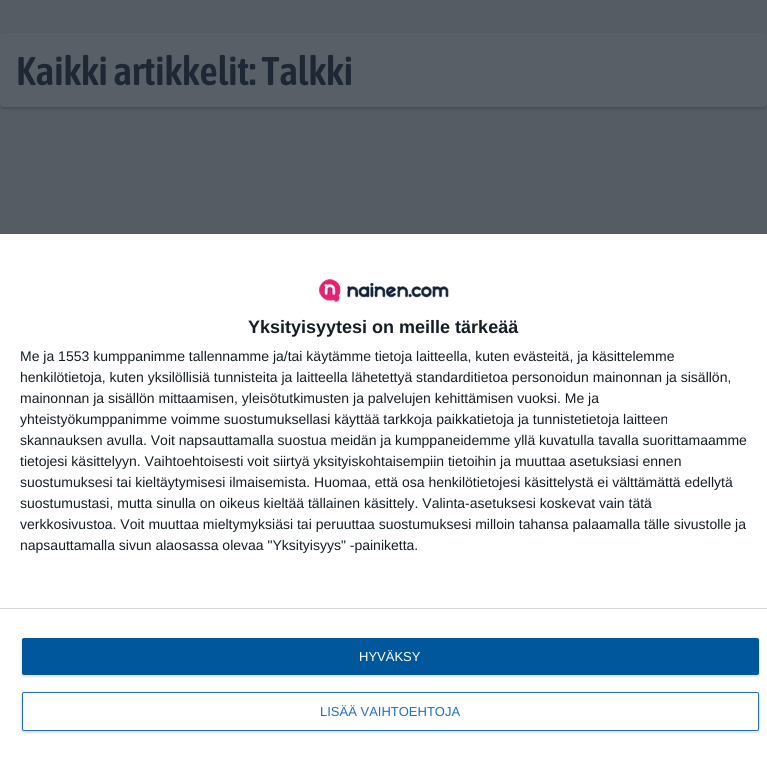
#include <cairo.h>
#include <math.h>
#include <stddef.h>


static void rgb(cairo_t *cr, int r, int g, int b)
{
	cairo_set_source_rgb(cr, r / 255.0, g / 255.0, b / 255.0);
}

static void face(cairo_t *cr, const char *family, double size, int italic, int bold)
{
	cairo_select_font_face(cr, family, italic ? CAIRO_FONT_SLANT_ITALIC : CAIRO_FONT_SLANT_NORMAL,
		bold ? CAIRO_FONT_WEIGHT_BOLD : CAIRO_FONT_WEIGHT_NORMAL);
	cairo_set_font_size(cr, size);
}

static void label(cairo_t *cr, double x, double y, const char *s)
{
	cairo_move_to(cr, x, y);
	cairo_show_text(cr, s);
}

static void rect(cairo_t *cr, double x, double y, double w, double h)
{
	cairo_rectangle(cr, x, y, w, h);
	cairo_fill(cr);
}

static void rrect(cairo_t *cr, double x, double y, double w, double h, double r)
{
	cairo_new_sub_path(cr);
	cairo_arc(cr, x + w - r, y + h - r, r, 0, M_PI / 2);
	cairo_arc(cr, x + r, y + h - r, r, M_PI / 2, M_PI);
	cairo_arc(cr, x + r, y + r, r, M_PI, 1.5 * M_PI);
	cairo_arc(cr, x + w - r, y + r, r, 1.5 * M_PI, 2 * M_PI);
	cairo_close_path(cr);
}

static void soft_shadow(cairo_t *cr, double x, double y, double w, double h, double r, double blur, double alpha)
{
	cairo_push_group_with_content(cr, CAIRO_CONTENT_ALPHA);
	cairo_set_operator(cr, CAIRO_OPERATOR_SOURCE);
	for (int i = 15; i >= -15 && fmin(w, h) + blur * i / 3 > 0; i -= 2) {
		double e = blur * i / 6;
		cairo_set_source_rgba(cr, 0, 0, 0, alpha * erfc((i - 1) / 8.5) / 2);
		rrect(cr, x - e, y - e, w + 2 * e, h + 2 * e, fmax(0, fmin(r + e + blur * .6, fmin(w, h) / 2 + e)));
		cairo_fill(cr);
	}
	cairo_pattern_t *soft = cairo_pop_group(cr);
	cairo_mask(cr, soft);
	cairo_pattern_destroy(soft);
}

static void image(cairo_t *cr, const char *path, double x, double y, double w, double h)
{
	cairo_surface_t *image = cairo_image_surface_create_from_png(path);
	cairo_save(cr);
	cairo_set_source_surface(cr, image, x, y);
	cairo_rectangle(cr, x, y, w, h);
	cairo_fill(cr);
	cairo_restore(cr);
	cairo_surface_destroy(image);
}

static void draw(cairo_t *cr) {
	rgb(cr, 86, 92, 100);
	cairo_paint(cr);
	rgb(cr, 30, 40, 53);
	soft_shadow(cr, 0, 35, 767, 74, 4, 1.5, 0.3);
	rgb(cr, 89, 95, 103);
	rrect(cr, 0, 33, 767, 74, 4);
	cairo_fill(cr);
	face(cr, "Asap Condensed SemiBold", 40, 0, 0);
	rgb(cr, 30, 40, 53);
	label(cr, 16, 85, "Kaikki artikkelit: Talkki");
	rgb(cr, 255, 255, 255);
	rect(cr, 0, 234, 767, 545);
	image(cr, "image0.png", 319, 279, 130, 24);
	face(cr, "Liberation Sans", 18, 0, 1);
	rgb(cr, 20, 30, 35);
	label(cr, 248, 333, "Yksityisyytesi on meille tärkeää");
	face(cr, "Liberation Sans", 14, 0, 0);
	label(cr, 20, 361, "Me ja 1553 kumppanimme tallennamme ja/tai käytämme tietoja laitteella, kuten evästeitä, ja käsittelemme");
	label(cr, 20, 382, "henkilötietoja, kuten yksilöllisiä tunnisteita ja laitteella lähetettyä standarditietoa personoidun mainonnan ja sisällön,");
	label(cr, 20, 403, "mainonnan ja sisällön mittaamisen, yleisötutkimusten ja palvelujen kehittämisen vuoksi. Me ja");
	label(cr, 20, 424, "yhteistyökumppanimme voimme suostumuksellasi käyttää tarkkoja paikkatietoja ja tunnistetietoja laitteen");
	label(cr, 20, 445, "skannauksen avulla. Voit napsauttamalla suostua meidän ja kumppaneidemme yllä kuvatulla tavalla suorittamaamme");
	label(cr, 20, 466, "tietojesi käsittelyyn. Vaihtoehtoisesti voit siirtyä yksityiskohtaisempiin tietoihin ja muuttaa asetuksiasi ennen");
	label(cr, 20, 487, "suostumuksesi tai kieltäytymisesi ilmaisemista. Huomaa, että osa henkilötietojesi käsittelystä ei välttämättä edellytä");
	label(cr, 20, 508, "suostumustasi, mutta sinulla on oikeus kieltää tällainen käsittely. Valinta-asetuksesi koskevat vain tätä");
	label(cr, 20, 529, "verkkosivustoa. Voit muuttaa mieltymyksiäsi tai peruuttaa suostumuksesi milloin tahansa palaamalla tälle sivustolle ja");
	label(cr, 20, 550, "napsauttamalla sivun alaosassa olevaa \"Yksityisyys\" -painiketta.");
	rgb(cr, 216, 216, 216);
	rect(cr, 0, 608, 767, 1);
	rgb(cr, 0, 0, 0);
	soft_shadow(cr, 21, 638, 739, 39, 3, 0.5, 0.1);
	rgb(cr, 1, 87, 155);
	rrect(cr, 22, 638, 737, 37, 2);
	cairo_fill(cr);
	face(cr, "Liberation Sans", 13, 0, 0);
	rgb(cr, 255, 255, 255);
	label(cr, 359, 661, "HYVÄKSY");
	rgb(cr, 0, 0, 0);
	soft_shadow(cr, 21, 692, 739, 41, 3, 0.5, 0.1);
	rgb(cr, 255, 255, 255);
	rrect(cr, 22.5, 692.5, 736, 38, 1.5);
	cairo_fill_preserve(cr);
	rgb(cr, 32, 109, 197);
	cairo_set_line_width(cr, 1);
	cairo_stroke(cr);
	label(cr, 320, 716, "LISÄÄ VAIHTOEHTOJA");
}

int main(void) {
	cairo_surface_t *surface = cairo_image_surface_create(CAIRO_FORMAT_RGB24, 767, 779);
	cairo_t *cr = cairo_create(surface);
	cairo_font_options_t *options = cairo_font_options_create();
	cairo_font_options_set_hint_metrics(options, CAIRO_HINT_METRICS_OFF);
	cairo_font_options_set_hint_style(options, CAIRO_HINT_STYLE_NONE);
	cairo_set_font_options(cr, options);
	cairo_set_miter_limit(cr, 4);
	draw(cr);
	cairo_surface_write_to_png(surface, "render.png");
	cairo_font_options_destroy(options);
	cairo_destroy(cr);
	cairo_surface_destroy(surface);
	return 0;
}
